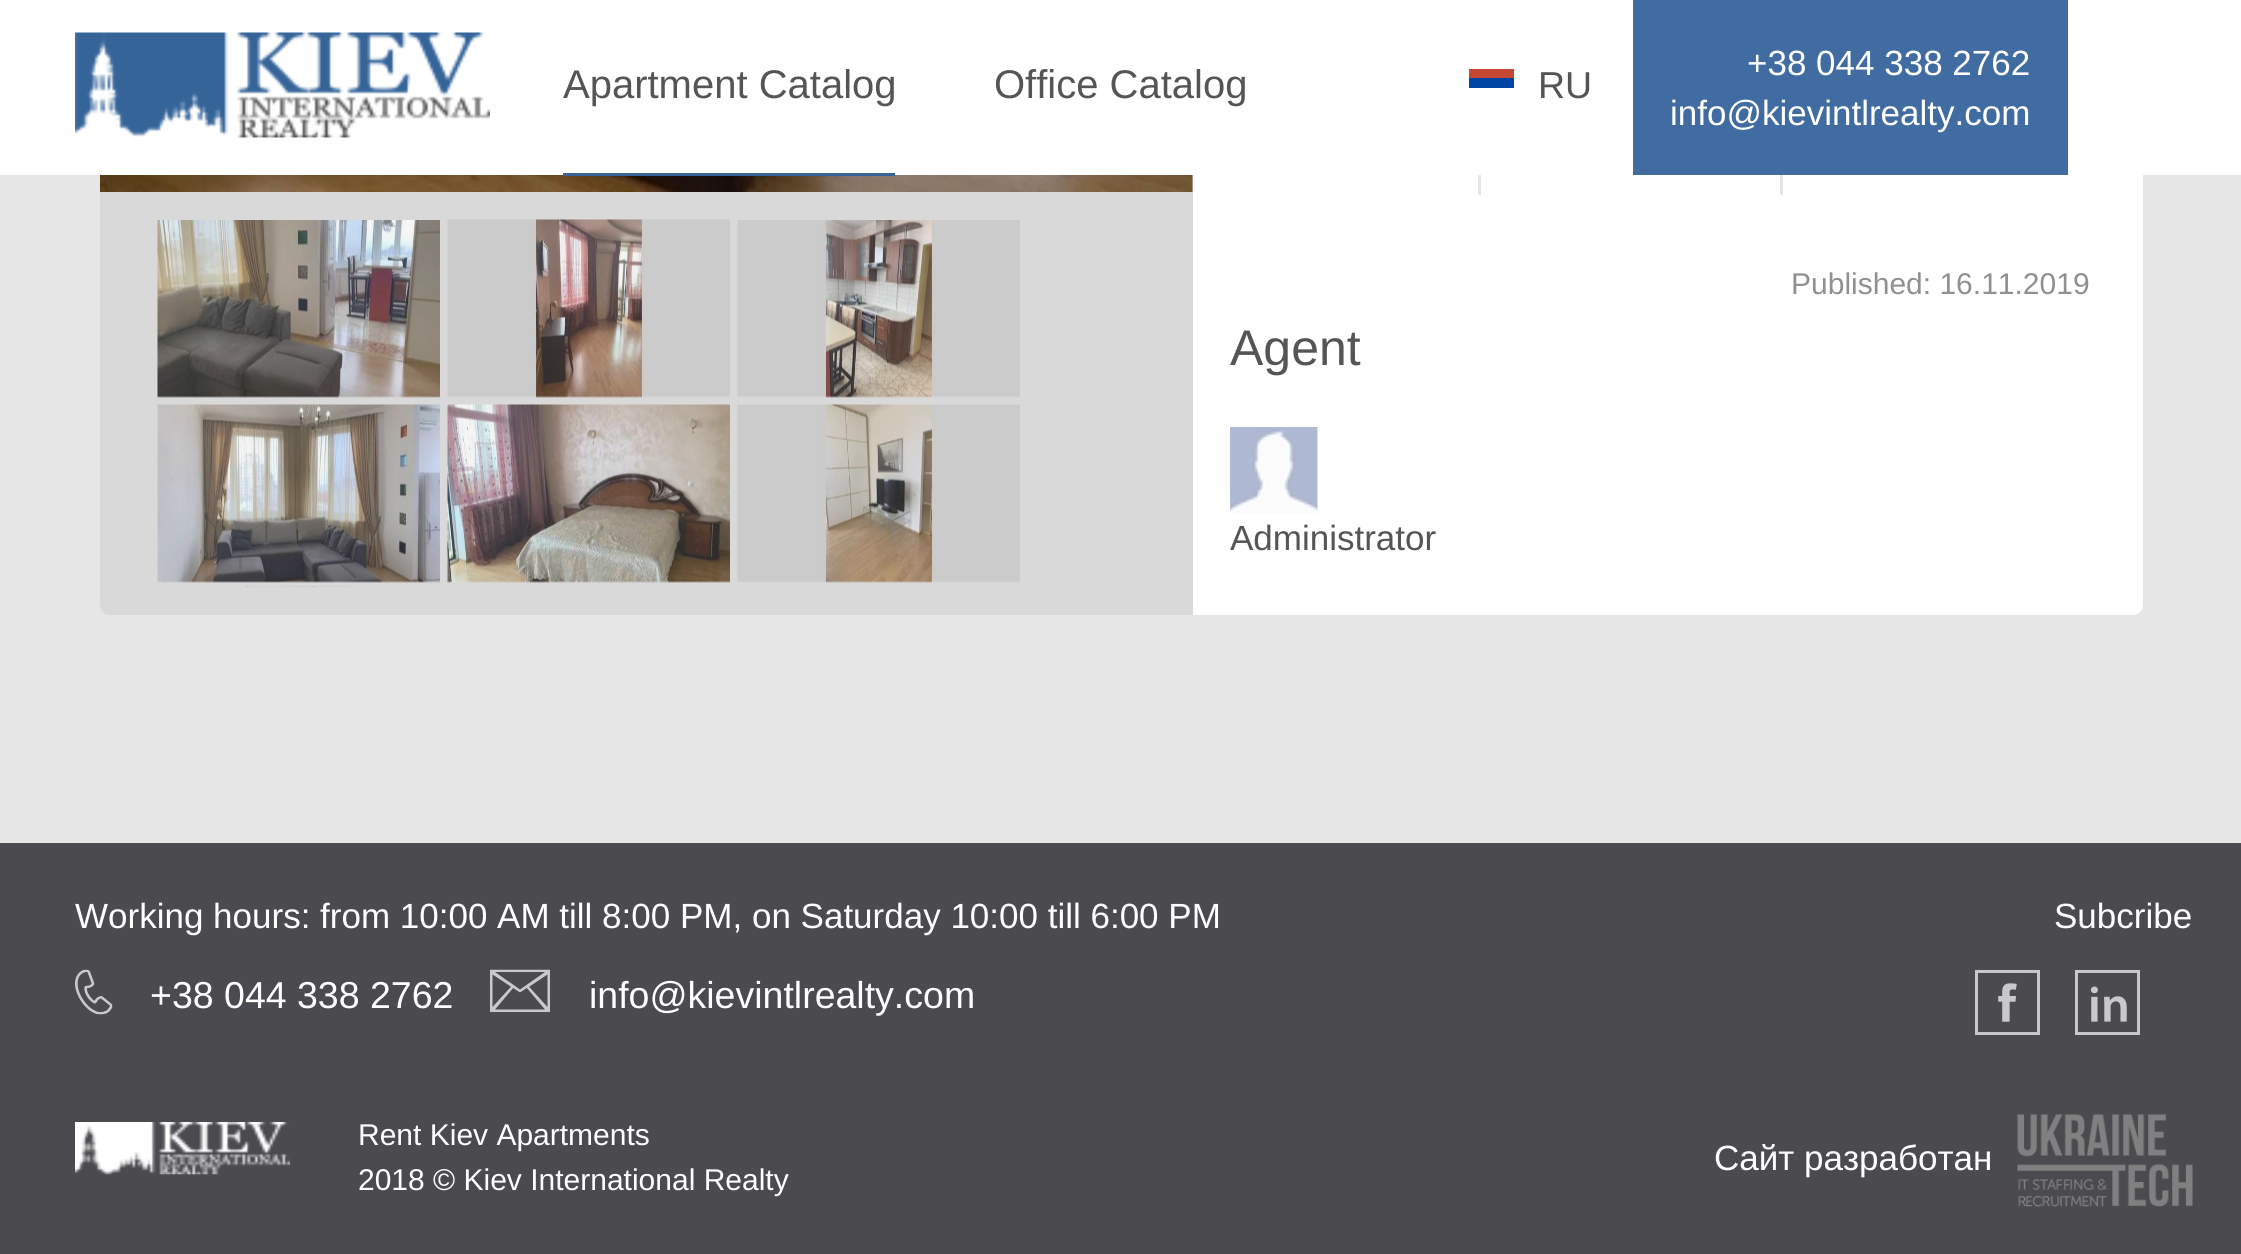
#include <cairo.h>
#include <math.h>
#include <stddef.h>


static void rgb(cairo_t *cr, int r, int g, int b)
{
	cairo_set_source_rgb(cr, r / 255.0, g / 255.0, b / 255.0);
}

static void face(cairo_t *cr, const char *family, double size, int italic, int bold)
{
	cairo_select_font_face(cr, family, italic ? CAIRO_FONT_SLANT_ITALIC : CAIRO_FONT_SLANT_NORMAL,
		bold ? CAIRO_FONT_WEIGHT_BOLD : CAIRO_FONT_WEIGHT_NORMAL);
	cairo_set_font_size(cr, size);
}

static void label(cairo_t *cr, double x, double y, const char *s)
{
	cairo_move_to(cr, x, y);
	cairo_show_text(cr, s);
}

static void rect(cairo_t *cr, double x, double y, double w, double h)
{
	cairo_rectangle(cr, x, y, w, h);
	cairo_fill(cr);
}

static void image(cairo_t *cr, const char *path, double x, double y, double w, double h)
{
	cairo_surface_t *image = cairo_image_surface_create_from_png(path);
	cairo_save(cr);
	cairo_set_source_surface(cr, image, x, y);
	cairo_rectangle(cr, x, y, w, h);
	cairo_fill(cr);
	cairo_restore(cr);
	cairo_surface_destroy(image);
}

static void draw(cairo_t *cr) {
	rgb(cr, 230, 230, 230);
	cairo_paint(cr);
	rgb(cr, 217, 217, 217);
	cairo_new_path(cr);
	cairo_move_to(cr, 100, -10);
	cairo_line_to(cr, 1193, -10);
	cairo_line_to(cr, 1193, 615);
	cairo_line_to(cr, 110, 615);
	cairo_curve_to(cr, 104.5, 615, 100, 610.5, 100, 605);
	cairo_close_path(cr);
	cairo_fill(cr);
	rgb(cr, 255, 255, 255);
	cairo_new_path(cr);
	cairo_move_to(cr, 1193, -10);
	cairo_line_to(cr, 2143, -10);
	cairo_line_to(cr, 2143, 605);
	cairo_curve_to(cr, 2143, 610.5, 2138.5, 615, 2133, 615);
	cairo_line_to(cr, 1193, 615);
	cairo_close_path(cr);
	cairo_fill(cr);
	rect(cr, 0, 0, 2241, 175);
	image(cr, "image0.png", 75, 32, 415, 106);
	image(cr, "image1.png", 100, 175, 1093, 17);
	rgb(cr, 56, 100, 152);
	rect(cr, 563, 173, 332, 3);
	face(cr, "Liberation Sans", 40, 0, 0);
	rgb(cr, 85, 85, 87);
	label(cr, 563, 98, "Apartment Catalog");
	label(cr, 994, 98, "Office Catalog");
	rgb(cr, 0, 69, 164);
	rect(cr, 1469, 78, 45, 10);
	rgb(cr, 199, 71, 50);
	rect(cr, 1469, 69, 45, 9);
	face(cr, "Liberation Sans", 37.5, 0, 0);
	rgb(cr, 85, 85, 87);
	label(cr, 1538, 98, "RU");
	rgb(cr, 64, 108, 161);
	rect(cr, 1633, 0, 435, 175);
	face(cr, "Liberation Sans", 35, 0, 0);
	rgb(cr, 255, 255, 255);
	label(cr, 1747, 75, "+38 044 338 2762");
	label(cr, 1670, 125, "info@kievintlrealty.com");
	image(cr, "image2.png", 157, 220, 283, 178);
	image(cr, "image3.png", 157, 404, 283, 179);
	image(cr, "image4.png", 447, 219, 283, 179);
	image(cr, "image5.png", 447, 404, 283, 179);
	image(cr, "image6.png", 737, 220, 283, 178);
	image(cr, "image7.png", 737, 404, 283, 179);
	image(cr, "image8.png", 245, 586, 110, 1);
	rgb(cr, 230, 230, 230);
	rect(cr, 1780, 175, 3, 20);
	rect(cr, 1478, 175, 3, 20);
	face(cr, "Liberation Sans", 30, 0, 0);
	rgb(cr, 144, 144, 146);
	label(cr, 1791, 294, "Published: 16.11.2019");
	face(cr, "Liberation Sans", 50, 0, 0);
	rgb(cr, 85, 85, 87);
	label(cr, 1230, 365, "Agent");
	image(cr, "image9.png", 1230, 427, 88, 87);
	face(cr, "Liberation Sans", 35, 0, 0);
	label(cr, 1230, 550, "Administrator");
	rgb(cr, 75, 74, 78);
	rect(cr, 0, 843, 2241, 411);
	rgb(cr, 255, 255, 255);
	label(cr, 75, 928, "Working hours: from 10:00 AM till 8:00 PM, on Saturday 10:00 till 6:00 PM");
	image(cr, "image10.png", 75, 969, 38, 46);
	face(cr, "Liberation Sans", 37.5, 0, 0);
	label(cr, 150, 1008, "+38 044 338 2762");
	image(cr, "image11.png", 490, 969, 60, 43);
	label(cr, 589, 1008, "info@kievintlrealty.com");
	face(cr, "Liberation Sans", 35, 0, 0);
	label(cr, 2054, 928, "Subcribe");
	image(cr, "image12.png", 1975, 970, 65, 65);
	image(cr, "image13.png", 2075, 970, 65, 65);
	image(cr, "image14.png", 75, 1122, 215, 53);
	face(cr, "Liberation Sans", 30, 0, 0);
	label(cr, 358, 1145, "Rent Kiev Apartments");
	label(cr, 358, 1190, "2018 © Kiev International Realty");
	face(cr, "Liberation Sans", 35, 0, 0);
	label(cr, 1714, 1170, "Сайт разработан");
	image(cr, "image15.png", 2017, 1114, 176, 93);
}

int main(void) {
	cairo_surface_t *surface = cairo_image_surface_create(CAIRO_FORMAT_RGB24, 2241, 1254);
	cairo_t *cr = cairo_create(surface);
	cairo_font_options_t *options = cairo_font_options_create();
	cairo_font_options_set_hint_metrics(options, CAIRO_HINT_METRICS_OFF);
	cairo_font_options_set_hint_style(options, CAIRO_HINT_STYLE_NONE);
	cairo_set_font_options(cr, options);
	cairo_set_miter_limit(cr, 4);
	draw(cr);
	cairo_surface_write_to_png(surface, "render.png");
	cairo_font_options_destroy(options);
	cairo_destroy(cr);
	cairo_surface_destroy(surface);
	return 0;
}
